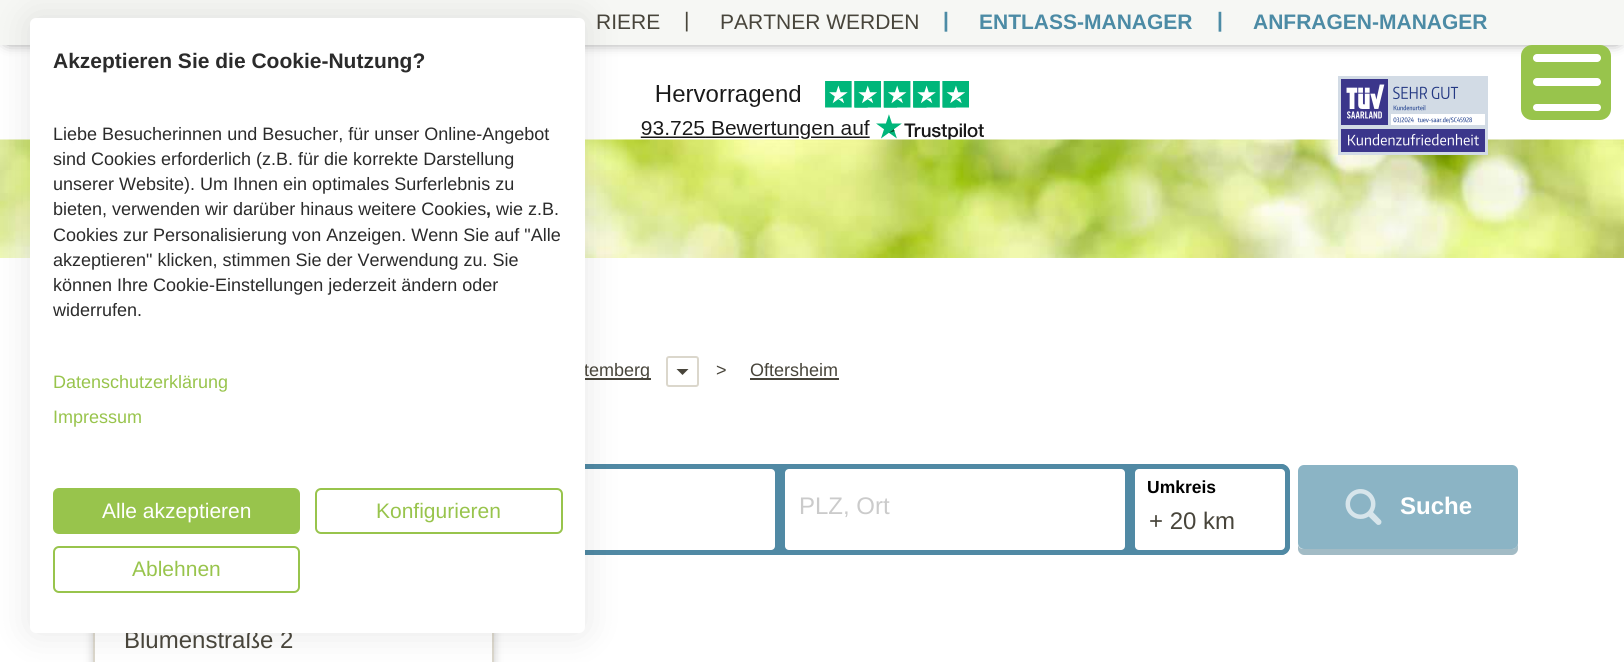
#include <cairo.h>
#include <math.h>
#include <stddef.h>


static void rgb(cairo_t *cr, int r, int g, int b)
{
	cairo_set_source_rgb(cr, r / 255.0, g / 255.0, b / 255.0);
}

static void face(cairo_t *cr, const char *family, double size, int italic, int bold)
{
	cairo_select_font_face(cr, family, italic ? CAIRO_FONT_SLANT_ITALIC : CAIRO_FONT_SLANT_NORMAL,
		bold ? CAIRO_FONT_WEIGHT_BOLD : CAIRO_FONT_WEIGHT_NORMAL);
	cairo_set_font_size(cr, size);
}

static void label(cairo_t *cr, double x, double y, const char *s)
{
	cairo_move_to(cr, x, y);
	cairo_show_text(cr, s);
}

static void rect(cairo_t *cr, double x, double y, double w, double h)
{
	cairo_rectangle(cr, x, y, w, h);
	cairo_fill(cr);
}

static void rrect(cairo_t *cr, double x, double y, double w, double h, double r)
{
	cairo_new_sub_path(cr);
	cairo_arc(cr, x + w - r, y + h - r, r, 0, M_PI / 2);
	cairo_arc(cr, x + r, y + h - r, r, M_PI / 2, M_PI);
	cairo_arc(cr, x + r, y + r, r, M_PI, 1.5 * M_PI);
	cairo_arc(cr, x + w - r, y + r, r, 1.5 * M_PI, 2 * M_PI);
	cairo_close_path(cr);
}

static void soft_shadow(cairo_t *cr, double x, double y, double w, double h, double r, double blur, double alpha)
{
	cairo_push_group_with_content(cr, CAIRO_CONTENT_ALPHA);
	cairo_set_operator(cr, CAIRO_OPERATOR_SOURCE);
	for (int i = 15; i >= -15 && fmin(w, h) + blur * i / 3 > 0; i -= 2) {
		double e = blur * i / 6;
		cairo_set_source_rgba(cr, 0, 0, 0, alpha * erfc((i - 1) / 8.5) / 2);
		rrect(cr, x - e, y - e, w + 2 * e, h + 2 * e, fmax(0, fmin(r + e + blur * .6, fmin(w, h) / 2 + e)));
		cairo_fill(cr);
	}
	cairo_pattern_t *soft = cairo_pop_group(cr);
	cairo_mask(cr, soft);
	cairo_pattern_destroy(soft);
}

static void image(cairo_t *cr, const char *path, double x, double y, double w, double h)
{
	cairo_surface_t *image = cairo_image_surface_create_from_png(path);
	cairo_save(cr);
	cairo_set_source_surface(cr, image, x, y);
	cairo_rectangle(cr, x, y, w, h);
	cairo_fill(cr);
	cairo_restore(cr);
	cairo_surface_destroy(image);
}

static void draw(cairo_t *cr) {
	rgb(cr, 255, 255, 255);
	cairo_paint(cr);
	rgb(cr, 0, 0, 0);
	soft_shadow(cr, 8, 8, 1609, 30, 0, 7.5, 1);
	rgb(cr, 246, 247, 244);
	rect(cr, 0, 0, 1624, 45);
	face(cr, "Liberation Sans", 21, 0, 0);
	rgb(cr, 72, 69, 59);
	label(cr, 596, 29, "RIERE");
	label(cr, 684, 27, "|");
	label(cr, 720, 29, "PARTNER WERDEN");
	face(cr, "Liberation Sans", 21, 0, 1);
	rgb(cr, 76, 139, 165);
	label(cr, 943, 27, "|");
	label(cr, 979, 29, "ENTLASS-MANAGER");
	label(cr, 1217, 27, "|");
	label(cr, 1253, 29, "ANFRAGEN-MANAGER");
	image(cr, "image2.png", 0, 139, 1624, 119);
	rgb(cr, 72, 69, 59);
	rect(cr, 585, 378, 66, 2);
	rgb(cr, 80, 137, 164);
	rect(cr, 771, 464, 359, 91);
	rgb(cr, 255, 255, 255);
	rrect(cr, 110.5, 466.5, 667, 86, 6.5);
	cairo_fill_preserve(cr);
	rgb(cr, 80, 137, 164);
	cairo_set_line_width(cr, 5);
	cairo_stroke(cr);
	cairo_save(cr);
	cairo_set_fill_rule(cr, CAIRO_FILL_RULE_EVEN_ODD);
	cairo_new_path(cr);
	cairo_move_to(cr, 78, 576);
	cairo_line_to(cr, 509, 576);
	cairo_line_to(cr, 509, 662);
	cairo_line_to(cr, 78, 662);
	cairo_close_path(cr);
	cairo_move_to(cr, 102, 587);
	cairo_line_to(cr, 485, 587);
	cairo_curve_to(cr, 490, 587, 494, 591, 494, 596);
	cairo_line_to(cr, 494, 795);
	cairo_curve_to(cr, 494, 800, 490, 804, 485, 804);
	cairo_line_to(cr, 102, 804);
	cairo_curve_to(cr, 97, 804, 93, 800, 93, 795);
	cairo_line_to(cr, 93, 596);
	cairo_curve_to(cr, 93, 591, 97, 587, 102, 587);
	cairo_close_path(cr);
	cairo_clip(cr);
	rgb(cr, 204, 204, 204);
	soft_shadow(cr, 93, 591, 401, 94, 9, 4.5, 1);
	cairo_restore(cr);
	cairo_rectangle(cr, 94, 588, 399, 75);
	rgb(cr, 219, 215, 204);
	cairo_set_line_width(cr, 2);
	cairo_stroke(cr);
	rgb(cr, 0, 0, 0);
	soft_shadow(cr, 30, 18, 555, 615, 6, 18, 0.1);
	face(cr, "Liberation Sans", 18, 0, 0);
	rgb(cr, 72, 69, 59);
	label(cr, 584, 376, "temberg");
	face(cr, "Liberation Sans", 24, 0, 0);
	label(cr, 124, 648, "Blumenstraße 2");
	rgb(cr, 255, 255, 255);
	rrect(cr, 30, 18, 555, 615, 6);
	cairo_fill(cr);
	face(cr, "Liberation Sans", 21, 0, 1);
	rgb(cr, 43, 43, 43);
	label(cr, 53, 68, "Akzeptieren Sie die Cookie-Nutzung?");
	face(cr, "Liberation Sans", 18, 0, 0);
	label(cr, 53, 140, "Liebe Besucherinnen und Besucher, für unser Online-Angebot");
	label(cr, 53, 165, "sind Cookies erforderlich (z.B. für die korrekte Darstellung");
	label(cr, 53, 190, "unserer Website). Um Ihnen ein optimales Surferlebnis zu");
	label(cr, 53, 215, "bieten, verwenden wir darüber hinaus weitere Cookies");
	face(cr, "Liberation Sans", 18, 0, 1);
	label(cr, 486, 215, ",");
	face(cr, "Liberation Sans", 18, 0, 0);
	label(cr, 496, 215, "wie z.B.");
	label(cr, 53, 241, "Cookies zur Personalisierung von Anzeigen. Wenn Sie auf \"Alle");
	label(cr, 53, 266, "akzeptieren\" klicken, stimmen Sie der Verwendung zu. Sie");
	label(cr, 53, 291, "können Ihre Cookie-Einstellungen jederzeit ändern oder");
	label(cr, 53, 316, "widerrufen.");
	rgb(cr, 152, 196, 76);
	label(cr, 53, 388, "Datenschutzerklärung");
	label(cr, 53, 423, "Impressum");
	rrect(cr, 54, 489, 245, 44, 5);
	cairo_fill_preserve(cr);
	cairo_stroke(cr);
	face(cr, "Liberation Sans", 21, 0, 0);
	rgb(cr, 255, 255, 255);
	label(cr, 102, 518, "Alle akzeptieren");
	rrect(cr, 316, 489, 246, 44, 5);
	rgb(cr, 152, 196, 76);
	cairo_stroke(cr);
	label(cr, 376, 518, "Konfigurieren");
	rrect(cr, 54, 547, 245, 45, 5);
	cairo_stroke(cr);
	label(cr, 132, 576, "Ablehnen");
	image(cr, "image0.png", 640, 81, 344, 59);
	image(cr, "image1.png", 1338, 76, 150, 79);
	rrect(cr, 1521, 45, 90, 75, 11);
	cairo_fill(cr);
	rgb(cr, 255, 255, 255);
	rrect(cr, 1533, 54, 68, 8, 4);
	cairo_fill(cr);
	rrect(cr, 1533, 78, 68, 8, 4);
	cairo_fill(cr);
	rrect(cr, 1533, 104, 68, 7, 3.5);
	cairo_fill(cr);
	rrect(cr, 667, 357, 31, 29, 2);
	rgb(cr, 219, 215, 204);
	cairo_stroke(cr);
	rgb(cr, 72, 69, 59);
	cairo_new_path(cr);
	cairo_move_to(cr, 676.5, 369);
	cairo_line_to(cr, 688.5, 369);
	cairo_line_to(cr, 682.5, 375);
	cairo_close_path(cr);
	cairo_fill(cr);
	face(cr, "Liberation Sans", 18, 0, 0);
	label(cr, 716, 376, ">");
	label(cr, 750, 376, "Oftersheim");
	rect(cr, 750, 378, 89, 2);
	rgb(cr, 255, 255, 255);
	rrect(cr, 782.5, 466.5, 345, 86, 6.5);
	cairo_fill_preserve(cr);
	rgb(cr, 80, 137, 164);
	cairo_set_line_width(cr, 5);
	cairo_stroke(cr);
	face(cr, "Liberation Sans", 24, 0, 0);
	rgb(cr, 203, 203, 203);
	label(cr, 799, 514, "PLZ, Ort");
	rgb(cr, 80, 137, 164);
	cairo_new_path(cr);
	cairo_move_to(cr, 1130, 464);
	cairo_line_to(cr, 1281, 464);
	cairo_curve_to(cr, 1286, 464, 1290, 468, 1290, 473);
	cairo_line_to(cr, 1290, 546);
	cairo_curve_to(cr, 1290, 551, 1286, 555, 1281, 555);
	cairo_line_to(cr, 1130, 555);
	cairo_close_path(cr);
	cairo_fill(cr);
	rgb(cr, 255, 255, 255);
	rrect(cr, 1132.5, 466.5, 155, 86, 6.5);
	cairo_fill_preserve(cr);
	rgb(cr, 80, 137, 164);
	cairo_stroke(cr);
	face(cr, "Liberation Sans", 17.5, 0, 1);
	rgb(cr, 0, 0, 0);
	label(cr, 1147, 493, "Umkreis");
	face(cr, "Liberation Sans", 24, 0, 0);
	rgb(cr, 72, 69, 59);
	label(cr, 1149, 529, "+ 20 km");
	rgb(cr, 162, 187, 197);
	cairo_new_path(cr);
	cairo_move_to(cr, 1298, 545);
	cairo_line_to(cr, 1298, 549);
	cairo_curve_to(cr, 1298, 552, 1301, 555, 1304, 555);
	cairo_line_to(cr, 1512, 555);
	cairo_curve_to(cr, 1515, 555, 1518, 552, 1518, 549);
	cairo_line_to(cr, 1518, 543);
	cairo_curve_to(cr, 1518, 546, 1515, 549, 1512, 549);
	cairo_line_to(cr, 1304, 549);
	cairo_curve_to(cr, 1301, 549, 1299, 548, 1298, 545);
	cairo_close_path(cr);
	cairo_fill(cr);
	rgb(cr, 139, 180, 197);
	rrect(cr, 1298, 465, 220, 84, 6);
	cairo_fill(cr);
	image(cr, "image3.png", 1345, 489, 37, 36);
	face(cr, "Liberation Sans", 24, 0, 1);
	rgb(cr, 255, 255, 255);
	label(cr, 1400, 514, "Suche");
}

int main(void) {
	cairo_surface_t *surface = cairo_image_surface_create(CAIRO_FORMAT_RGB24, 1624, 662);
	cairo_t *cr = cairo_create(surface);
	cairo_font_options_t *options = cairo_font_options_create();
	cairo_font_options_set_hint_metrics(options, CAIRO_HINT_METRICS_OFF);
	cairo_font_options_set_hint_style(options, CAIRO_HINT_STYLE_NONE);
	cairo_set_font_options(cr, options);
	cairo_set_miter_limit(cr, 4);
	draw(cr);
	cairo_surface_write_to_png(surface, "render.png");
	cairo_font_options_destroy(options);
	cairo_destroy(cr);
	cairo_surface_destroy(surface);
	return 0;
}
